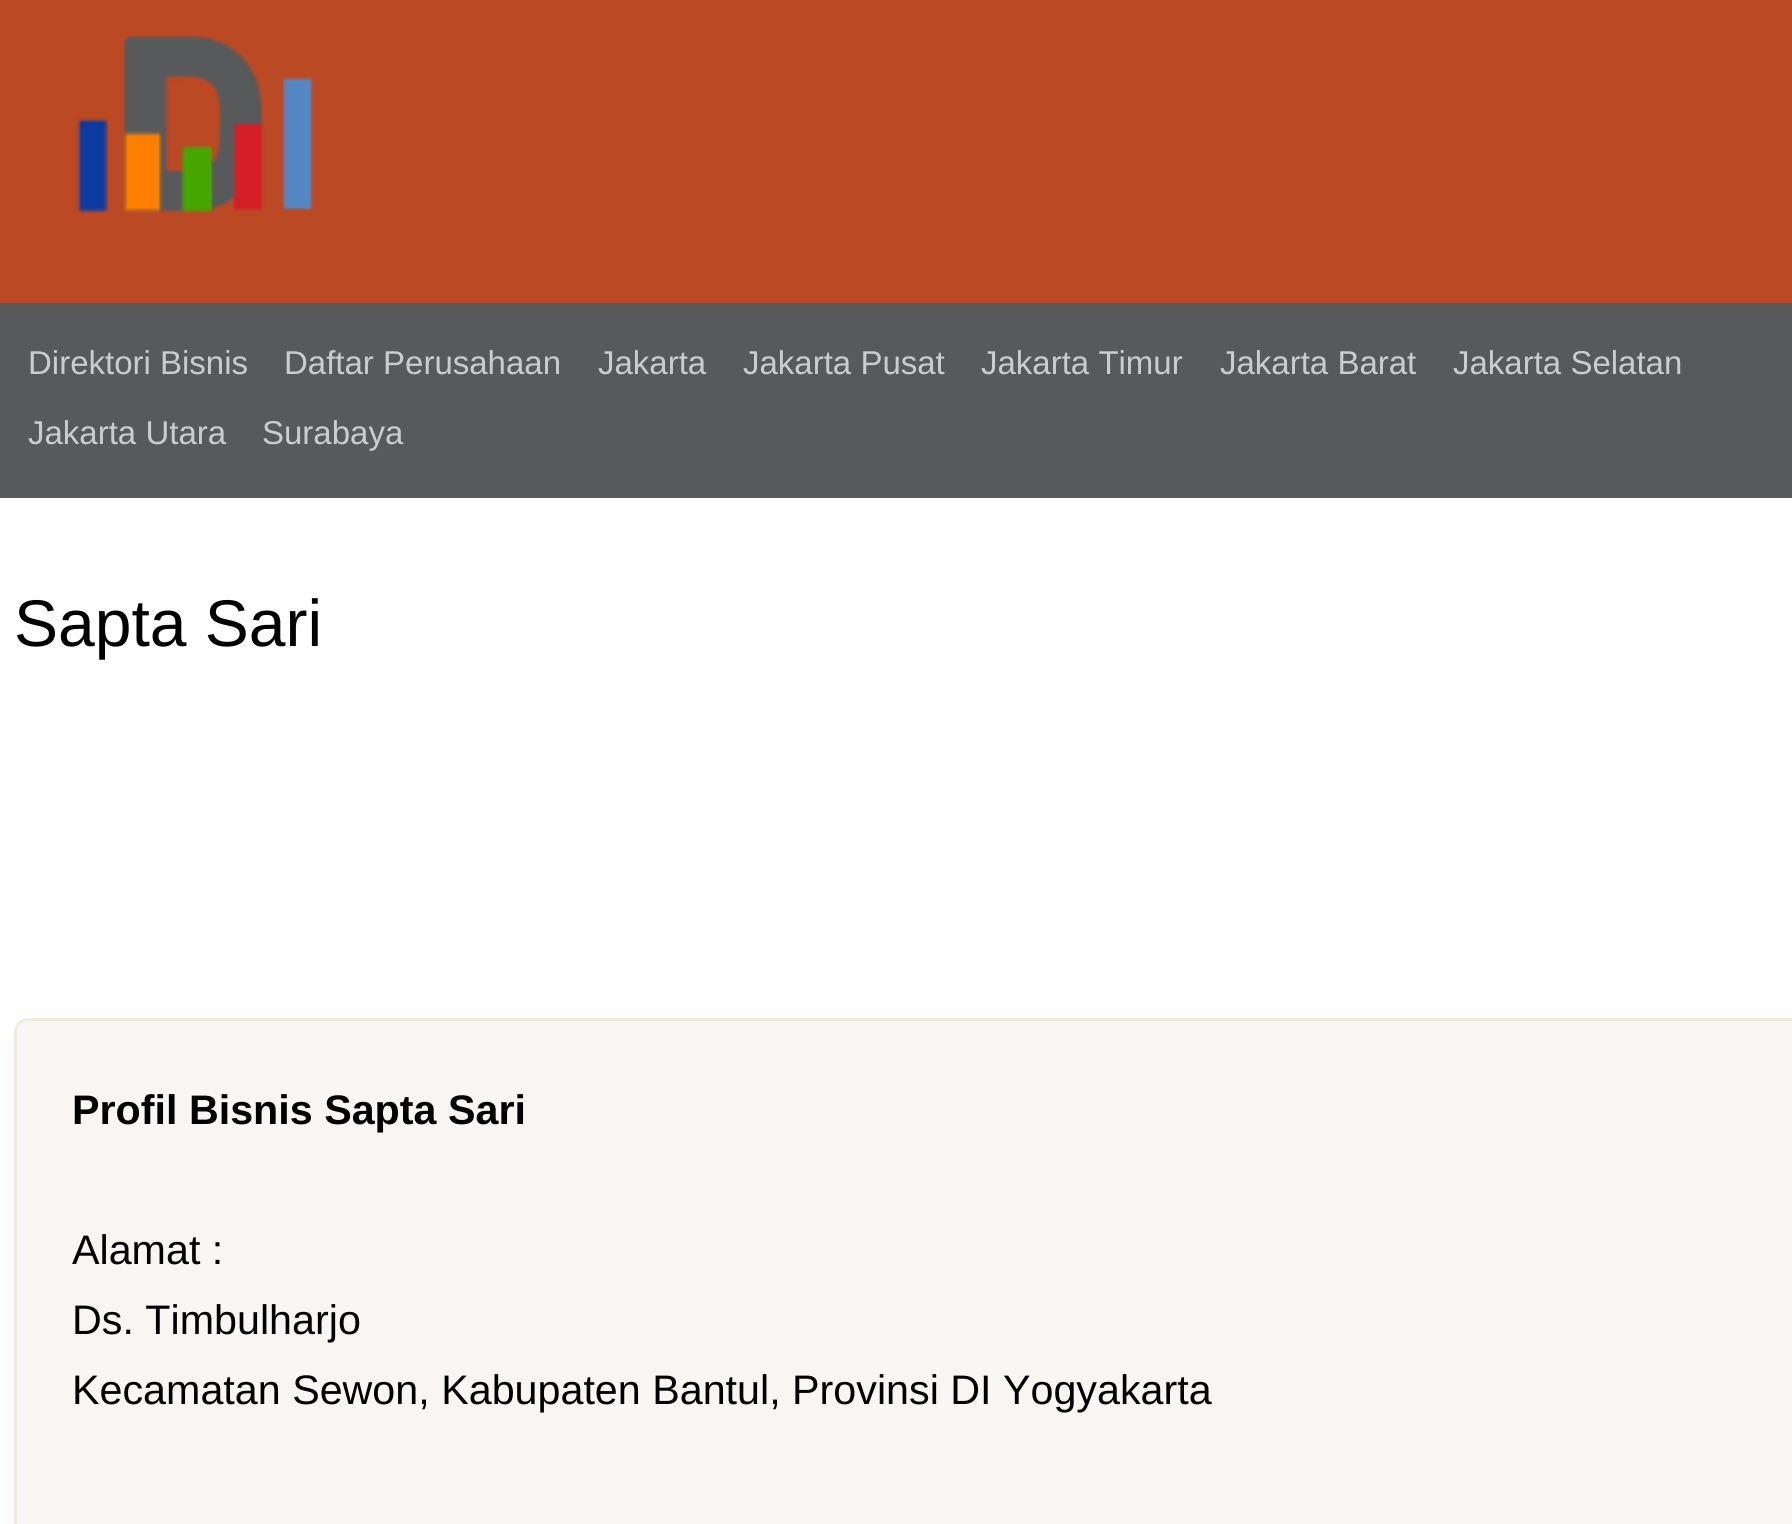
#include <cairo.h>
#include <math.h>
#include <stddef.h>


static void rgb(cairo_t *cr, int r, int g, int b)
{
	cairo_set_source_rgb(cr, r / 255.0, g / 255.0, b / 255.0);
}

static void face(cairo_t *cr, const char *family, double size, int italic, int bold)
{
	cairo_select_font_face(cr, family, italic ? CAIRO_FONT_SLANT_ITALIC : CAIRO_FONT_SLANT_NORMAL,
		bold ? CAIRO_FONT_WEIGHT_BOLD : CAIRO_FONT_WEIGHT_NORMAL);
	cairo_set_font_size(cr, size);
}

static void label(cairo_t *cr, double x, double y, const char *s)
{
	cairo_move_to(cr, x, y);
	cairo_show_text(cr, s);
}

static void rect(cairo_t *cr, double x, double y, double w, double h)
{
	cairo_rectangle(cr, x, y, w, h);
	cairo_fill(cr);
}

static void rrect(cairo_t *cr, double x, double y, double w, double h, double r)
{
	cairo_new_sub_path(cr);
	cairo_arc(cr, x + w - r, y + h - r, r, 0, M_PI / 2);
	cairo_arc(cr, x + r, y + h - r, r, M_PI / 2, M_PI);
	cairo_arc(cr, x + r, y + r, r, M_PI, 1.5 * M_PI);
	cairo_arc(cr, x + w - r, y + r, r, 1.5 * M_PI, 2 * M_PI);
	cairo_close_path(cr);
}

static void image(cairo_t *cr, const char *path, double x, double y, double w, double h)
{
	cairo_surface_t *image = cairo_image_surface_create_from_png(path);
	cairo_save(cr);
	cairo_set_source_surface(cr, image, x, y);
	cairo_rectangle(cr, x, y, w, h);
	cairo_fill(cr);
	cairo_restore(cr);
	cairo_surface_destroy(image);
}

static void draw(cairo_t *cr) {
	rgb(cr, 255, 255, 255);
	cairo_paint(cr);
	rgb(cr, 187, 73, 36);
	rect(cr, 0, 0, 1792, 303);
	image(cr, "image0.png", 76, 35, 239, 178);
	rgb(cr, 88, 89, 91);
	rect(cr, 0, 303, 1792, 195);
	face(cr, "Liberation Sans", 33, 0, 0);
	rgb(cr, 204, 204, 204);
	label(cr, 28, 374, "Direktori Bisnis");
	label(cr, 284, 374, "Daftar Perusahaan");
	label(cr, 598, 374, "Jakarta");
	label(cr, 743, 374, "Jakarta Pusat");
	label(cr, 981, 374, "Jakarta Timur");
	label(cr, 1220, 374, "Jakarta Barat");
	label(cr, 1453, 374, "Jakarta Selatan");
	label(cr, 28, 444, "Jakarta Utara");
	label(cr, 262, 444, "Surabaya");
	face(cr, "Liberation Sans", 66, 0, 0);
	rgb(cr, 0, 0, 0);
	label(cr, 14, 646, "Sapta Sari");
	rgb(cr, 247, 246, 242);
	rrect(cr, 15.5, 1019.5, 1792, 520, 12.5);
	cairo_fill_preserve(cr);
	rgb(cr, 240, 235, 219);
	cairo_set_line_width(cr, 3);
	cairo_stroke(cr);
	face(cr, "Liberation Sans", 41.25, 0, 1);
	rgb(cr, 0, 0, 0);
	label(cr, 72, 1124, "Profil Bisnis Sapta Sari");
	face(cr, "Liberation Sans", 41.25, 0, 0);
	label(cr, 72, 1264, "Alamat :");
	label(cr, 72, 1334, "Ds. Timbulharjo");
	label(cr, 72, 1404, "Kecamatan Sewon, Kabupaten Bantul, Provinsi DI Yogyakarta");
}

int main(void) {
	cairo_surface_t *surface = cairo_image_surface_create(CAIRO_FORMAT_RGB24, 1792, 1524);
	cairo_t *cr = cairo_create(surface);
	cairo_font_options_t *options = cairo_font_options_create();
	cairo_font_options_set_hint_metrics(options, CAIRO_HINT_METRICS_OFF);
	cairo_font_options_set_hint_style(options, CAIRO_HINT_STYLE_NONE);
	cairo_set_font_options(cr, options);
	cairo_set_miter_limit(cr, 4);
	draw(cr);
	cairo_surface_write_to_png(surface, "render.png");
	cairo_font_options_destroy(options);
	cairo_destroy(cr);
	cairo_surface_destroy(surface);
	return 0;
}
